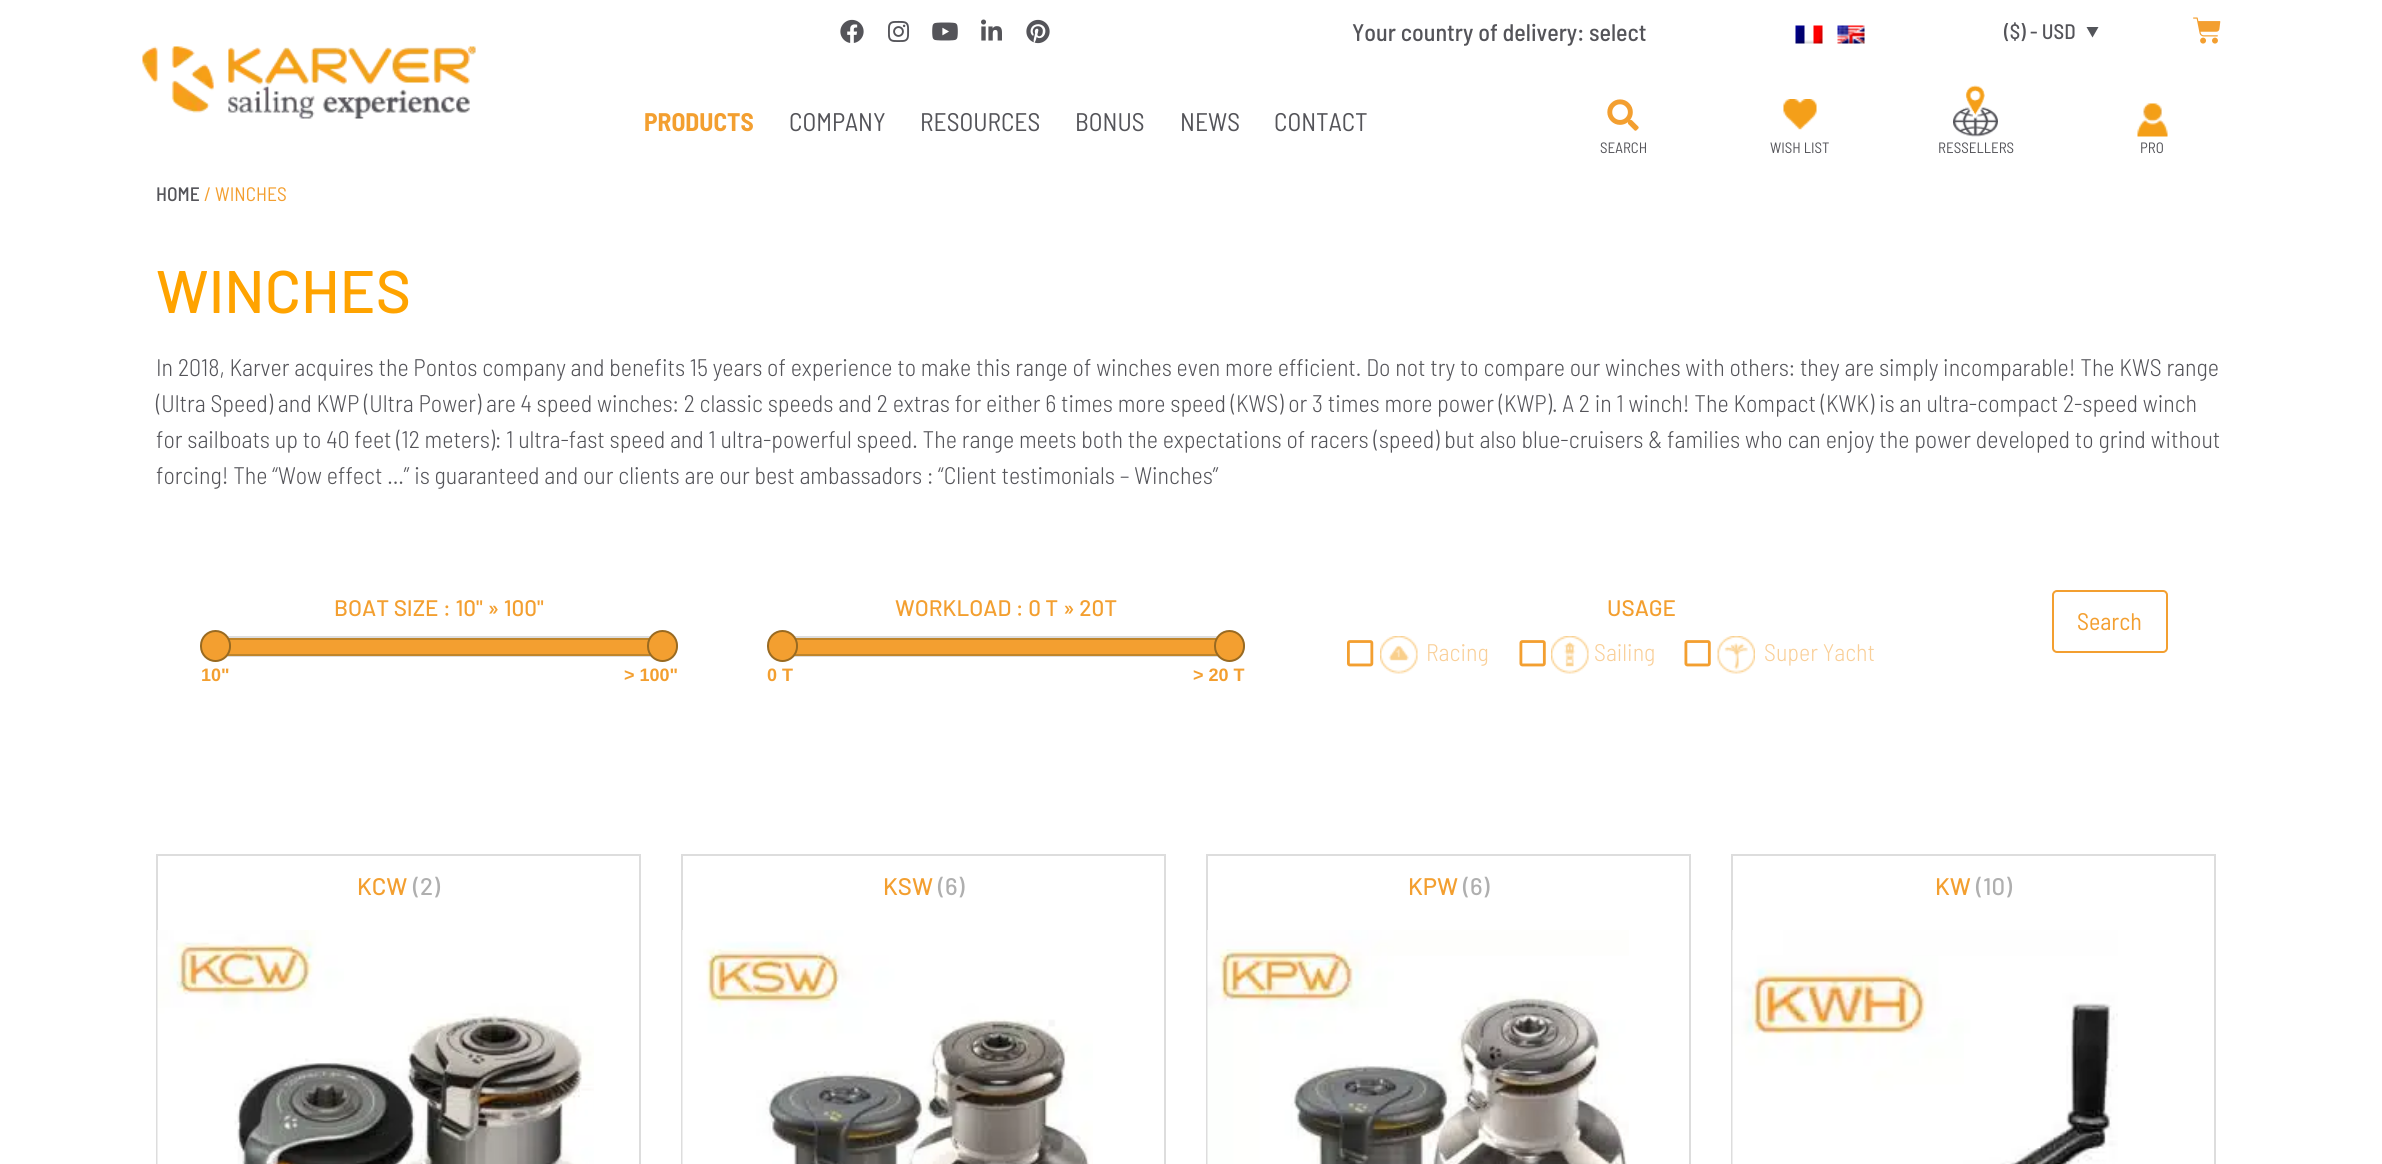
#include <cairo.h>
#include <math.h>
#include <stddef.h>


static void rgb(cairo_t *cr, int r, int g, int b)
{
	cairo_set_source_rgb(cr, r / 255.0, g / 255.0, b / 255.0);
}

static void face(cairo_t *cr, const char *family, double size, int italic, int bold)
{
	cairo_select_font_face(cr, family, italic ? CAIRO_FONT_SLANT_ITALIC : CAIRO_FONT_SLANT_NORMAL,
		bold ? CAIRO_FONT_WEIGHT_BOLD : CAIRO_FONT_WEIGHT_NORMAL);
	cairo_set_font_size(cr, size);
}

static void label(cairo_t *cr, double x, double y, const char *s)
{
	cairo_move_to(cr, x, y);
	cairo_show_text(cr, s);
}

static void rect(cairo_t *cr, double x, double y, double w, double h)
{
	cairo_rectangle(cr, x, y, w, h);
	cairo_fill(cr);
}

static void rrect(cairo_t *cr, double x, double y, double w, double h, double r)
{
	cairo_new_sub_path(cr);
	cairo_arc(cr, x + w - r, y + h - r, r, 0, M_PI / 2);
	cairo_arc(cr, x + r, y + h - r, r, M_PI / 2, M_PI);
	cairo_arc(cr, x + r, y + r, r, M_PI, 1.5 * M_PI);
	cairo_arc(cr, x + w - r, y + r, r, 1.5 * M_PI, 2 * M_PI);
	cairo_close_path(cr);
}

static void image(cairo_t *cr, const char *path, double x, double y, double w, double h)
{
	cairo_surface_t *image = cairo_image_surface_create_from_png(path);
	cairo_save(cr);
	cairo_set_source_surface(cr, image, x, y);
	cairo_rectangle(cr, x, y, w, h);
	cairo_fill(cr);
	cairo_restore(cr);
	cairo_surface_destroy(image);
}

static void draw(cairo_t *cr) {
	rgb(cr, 255, 255, 255);
	cairo_paint(cr);
	image(cr, "image0.png", 142, 46, 334, 73);
	image(cr, "image1.png", 840, 19, 24, 24);
	image(cr, "image2.png", 888, 20, 22, 22);
	image(cr, "image3.png", 932, 22, 26, 19);
	image(cr, "image4.png", 981, 19, 21, 22);
	image(cr, "image5.png", 1026, 19, 24, 25);
	face(cr, "Barlow Semi Condensed Medium", 24, 0, 0);
	rgb(cr, 84, 84, 89);
	label(cr, 1352, 41, "Your country of delivery: select");
	image(cr, "image6.png", 1795, 25, 28, 19);
	image(cr, "image7.png", 1837, 25, 28, 19);
	face(cr, "Barlow Semi Condensed Medium", 21, 0, 0);
	label(cr, 2004, 39, "($) - USD");
	rgb(cr, 83, 85, 90);
	cairo_new_path(cr);
	cairo_move_to(cr, 2086.5, 27);
	cairo_line_to(cr, 2098.5, 27);
	cairo_line_to(cr, 2092.5, 37.5);
	cairo_close_path(cr);
	cairo_fill(cr);
	image(cr, "image8.png", 2193, 17, 28, 27);
	face(cr, "Barlow Semi Condensed", 25.5, 0, 1);
	rgb(cr, 243, 159, 48);
	label(cr, 644, 131, "PRODUCTS");
	face(cr, "Barlow Semi Condensed", 25.5, 0, 0);
	rgb(cr, 84, 84, 89);
	label(cr, 789, 131, "COMPANY");
	label(cr, 920, 131, "RESOURCES");
	label(cr, 1075, 131, "BONUS");
	label(cr, 1180, 131, "NEWS");
	label(cr, 1274, 131, "CONTACT");
	image(cr, "image9.png", 1607, 99, 32, 32);
	face(cr, "Barlow Semi Condensed", 15, 0, 0);
	label(cr, 1600, 153, "SEARCH");
	image(cr, "image10.png", 1783, 99, 34, 31);
	label(cr, 1770, 153, "WISH LIST");
	image(cr, "image11.png", 1953, 85, 45, 52);
	label(cr, 1938, 153, "RESSELLERS");
	image(cr, "image12.png", 2137, 103, 31, 34);
	label(cr, 2140, 153, "PRO");
	face(cr, "Barlow Semi Condensed Medium", 19.5, 0, 0);
	label(cr, 156, 201, "HOME");
	face(cr, "Barlow Semi Condensed", 19.5, 0, 0);
	rgb(cr, 243, 159, 48);
	label(cr, 204, 201, "/ WINCHES");
	face(cr, "Barlow Medium", 60, 0, 0);
	rgb(cr, 255, 163, 0);
	label(cr, 156, 313, "WINCHES");
	face(cr, "Barlow Semi Condensed Light", 24, 0, 0);
	rgb(cr, 84, 84, 89);
	label(cr, 156, 376, "In 2018, Karver acquires the Pontos company and benefits 15 years of experience to make this range of winches even more efficient. Do not try to compare our winches with others: they are simply incomparable! The KWS range");
	label(cr, 156, 412, "(Ultra Speed) and KWP (Ultra Power) are 4 speed winches: 2 classic speeds and 2 extras for either 6 times more speed (KWS) or 3 times more power (KWP). A 2 in 1 winch! The Kompact (KWK) is an ultra-compact 2-speed winch");
	label(cr, 156, 448, "for sailboats up to 40 feet (12 meters): 1 ultra-fast speed and 1 ultra-powerful speed. The range meets both the expectations of racers (speed) but also blue-cruisers & families who can enjoy the power developed to grind without");
	label(cr, 156, 484, "forcing! The “Wow effect …” is guaranteed and our clients are our best ambassadors : “Client testimonials – Winches”");
	face(cr, "Barlow Medium", 22.5, 0, 0);
	rgb(cr, 243, 159, 48);
	label(cr, 334, 616, "BOAT SIZE : 10\" » 100\"");
	cairo_rectangle(cr, 216, 637, 448, 19);
	rgb(cr, 221, 221, 221);
	cairo_stroke(cr);
	rgb(cr, 243, 159, 48);
	rect(cr, 229, 640, 420, 14);
	cairo_rectangle(cr, 217, 639, 445, 16);
	rgb(cr, 191, 133, 43);
	cairo_stroke(cr);
	rgb(cr, 243, 159, 48);
	rrect(cr, 201, 631, 29, 30, 14.5);
	cairo_fill_preserve(cr);
	rgb(cr, 153, 106, 33);
	cairo_stroke(cr);
	rgb(cr, 243, 159, 48);
	rrect(cr, 648, 631, 29, 30, 14.5);
	cairo_fill_preserve(cr);
	rgb(cr, 153, 106, 33);
	cairo_stroke(cr);
	face(cr, "Liberation Sans", 18, 0, 1);
	rgb(cr, 243, 159, 48);
	label(cr, 201, 681, "10\"");
	label(cr, 624, 681, "> 100\"");
	face(cr, "Barlow Medium", 22.5, 0, 0);
	label(cr, 895, 616, "WORKLOAD : 0 T » 20T");
	cairo_rectangle(cr, 781, 637, 448, 19);
	rgb(cr, 221, 221, 221);
	cairo_stroke(cr);
	rgb(cr, 243, 159, 48);
	rect(cr, 796, 640, 420, 14);
	cairo_rectangle(cr, 783, 639, 445, 16);
	rgb(cr, 191, 133, 43);
	cairo_stroke(cr);
	rgb(cr, 243, 159, 48);
	rrect(cr, 768, 631, 29, 30, 14.5);
	cairo_fill_preserve(cr);
	rgb(cr, 153, 106, 33);
	cairo_stroke(cr);
	rgb(cr, 243, 159, 48);
	rrect(cr, 1215, 631, 29, 30, 14.5);
	cairo_fill_preserve(cr);
	rgb(cr, 153, 106, 33);
	cairo_stroke(cr);
	face(cr, "Liberation Sans", 18, 0, 1);
	rgb(cr, 243, 159, 48);
	label(cr, 767, 681, "0 T");
	label(cr, 1193, 681, "> 20 T");
	face(cr, "Barlow Medium", 22.5, 0, 0);
	label(cr, 1607, 616, "USAGE");
	image(cr, "image13.png", 1347, 640, 27, 27);
	image(cr, "image14.png", 1380, 636, 38, 38);
	face(cr, "Barlow Semi Condensed Light", 24, 0, 0);
	rgb(cr, 249, 207, 152);
	label(cr, 1426, 661, "Racing");
	image(cr, "image15.png", 1519, 640, 27, 27);
	image(cr, "image16.png", 1551, 636, 38, 38);
	label(cr, 1594, 661, "Sailing");
	image(cr, "image15.png", 1684, 640, 27, 27);
	image(cr, "image17.png", 1717, 636, 38, 38);
	label(cr, 1764, 661, "Super Yacht");
	rrect(cr, 2053, 591, 114, 61, 4);
	rgb(cr, 243, 159, 48);
	cairo_stroke(cr);
	face(cr, "Barlow Semi Condensed", 24, 0, 0);
	label(cr, 2077, 630, "Search");
	cairo_rectangle(cr, 157, 855, 483, 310);
	rgb(cr, 221, 221, 221);
	cairo_stroke(cr);
	face(cr, "Barlow Medium", 24, 0, 0);
	rgb(cr, 243, 159, 48);
	label(cr, 357, 895, "KCW");
	rgb(cr, 175, 175, 175);
	label(cr, 413, 895, "(2)");
	image(cr, "image18.png", 157, 930, 437, 234);
	cairo_rectangle(cr, 682, 855, 483, 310);
	rgb(cr, 221, 221, 221);
	cairo_stroke(cr);
	rgb(cr, 243, 159, 48);
	label(cr, 883, 895, "KSW");
	rgb(cr, 175, 175, 175);
	label(cr, 938, 895, "(6)");
	image(cr, "image19.png", 682, 930, 411, 234);
	cairo_rectangle(cr, 1207, 855, 483, 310);
	rgb(cr, 221, 221, 221);
	cairo_stroke(cr);
	rgb(cr, 243, 159, 48);
	label(cr, 1408, 895, "KPW");
	rgb(cr, 175, 175, 175);
	label(cr, 1463, 895, "(6)");
	image(cr, "image20.png", 1207, 930, 422, 234);
	cairo_rectangle(cr, 1732, 855, 483, 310);
	rgb(cr, 221, 221, 221);
	cairo_stroke(cr);
	rgb(cr, 243, 159, 48);
	label(cr, 1935, 895, "KW");
	rgb(cr, 175, 175, 175);
	label(cr, 1976, 895, "(10)");
	image(cr, "image21.png", 1732, 930, 386, 234);
}

int main(void) {
	cairo_surface_t *surface = cairo_image_surface_create(CAIRO_FORMAT_RGB24, 2382, 1164);
	cairo_t *cr = cairo_create(surface);
	cairo_font_options_t *options = cairo_font_options_create();
	cairo_font_options_set_hint_metrics(options, CAIRO_HINT_METRICS_OFF);
	cairo_font_options_set_hint_style(options, CAIRO_HINT_STYLE_NONE);
	cairo_set_font_options(cr, options);
	cairo_set_miter_limit(cr, 4);
	draw(cr);
	cairo_surface_write_to_png(surface, "render.png");
	cairo_font_options_destroy(options);
	cairo_destroy(cr);
	cairo_surface_destroy(surface);
	return 0;
}
